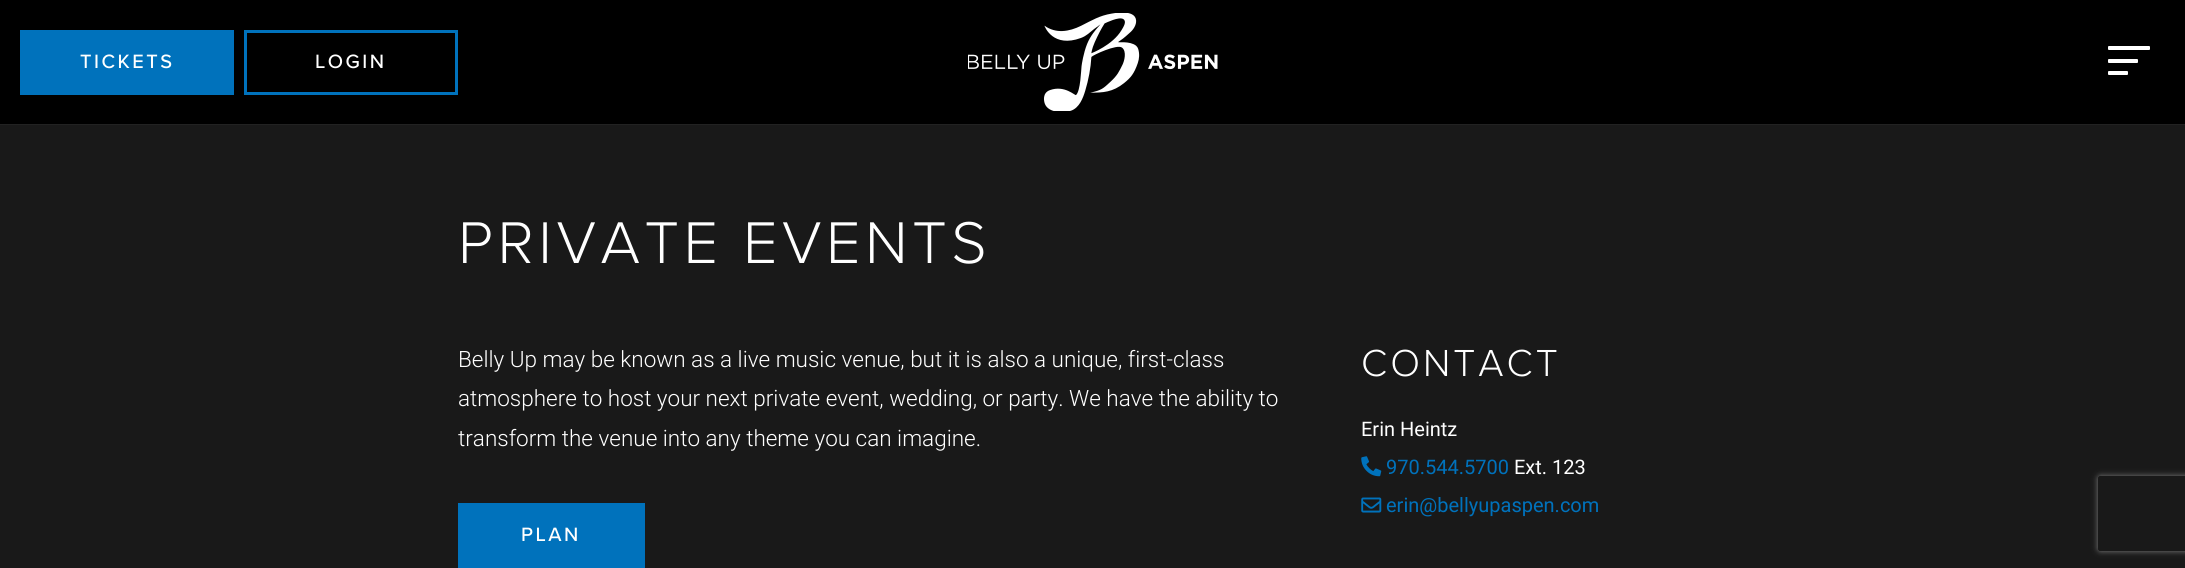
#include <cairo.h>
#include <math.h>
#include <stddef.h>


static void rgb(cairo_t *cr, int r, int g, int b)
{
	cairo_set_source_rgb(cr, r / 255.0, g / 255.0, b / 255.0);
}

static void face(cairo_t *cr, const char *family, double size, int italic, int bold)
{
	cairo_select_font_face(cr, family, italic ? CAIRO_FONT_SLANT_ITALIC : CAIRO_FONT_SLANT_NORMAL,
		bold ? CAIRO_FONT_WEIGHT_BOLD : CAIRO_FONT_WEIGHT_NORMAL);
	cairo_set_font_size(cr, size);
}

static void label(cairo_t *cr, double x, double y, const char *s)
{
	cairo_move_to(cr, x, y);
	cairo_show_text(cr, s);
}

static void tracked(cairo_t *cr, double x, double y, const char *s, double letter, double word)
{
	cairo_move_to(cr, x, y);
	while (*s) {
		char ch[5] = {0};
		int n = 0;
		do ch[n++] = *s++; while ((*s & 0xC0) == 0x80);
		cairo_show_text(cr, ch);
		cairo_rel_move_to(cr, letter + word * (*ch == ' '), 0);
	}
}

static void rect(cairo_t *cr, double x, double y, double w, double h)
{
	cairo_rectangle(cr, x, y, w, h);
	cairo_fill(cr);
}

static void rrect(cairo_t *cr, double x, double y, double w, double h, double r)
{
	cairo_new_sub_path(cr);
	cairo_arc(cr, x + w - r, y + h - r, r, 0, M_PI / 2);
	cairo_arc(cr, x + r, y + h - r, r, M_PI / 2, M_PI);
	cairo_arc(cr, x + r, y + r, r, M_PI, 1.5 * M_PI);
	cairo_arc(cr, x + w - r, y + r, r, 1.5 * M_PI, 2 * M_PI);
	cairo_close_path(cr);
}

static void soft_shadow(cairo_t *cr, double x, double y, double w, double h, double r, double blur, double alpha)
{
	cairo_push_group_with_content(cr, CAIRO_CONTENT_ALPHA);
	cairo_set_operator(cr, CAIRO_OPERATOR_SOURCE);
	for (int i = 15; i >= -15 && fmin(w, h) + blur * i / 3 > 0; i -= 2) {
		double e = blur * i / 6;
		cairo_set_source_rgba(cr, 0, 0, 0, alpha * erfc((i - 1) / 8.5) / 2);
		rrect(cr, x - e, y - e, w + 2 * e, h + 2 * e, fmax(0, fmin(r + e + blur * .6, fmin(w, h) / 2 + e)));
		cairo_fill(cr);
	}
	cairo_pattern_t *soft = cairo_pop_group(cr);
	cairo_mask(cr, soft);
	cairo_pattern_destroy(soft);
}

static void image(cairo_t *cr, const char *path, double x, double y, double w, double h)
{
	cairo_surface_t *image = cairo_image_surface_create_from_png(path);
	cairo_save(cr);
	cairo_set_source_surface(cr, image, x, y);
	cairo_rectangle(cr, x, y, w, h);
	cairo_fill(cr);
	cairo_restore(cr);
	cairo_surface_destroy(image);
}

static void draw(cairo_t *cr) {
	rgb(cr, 25, 25, 25);
	cairo_paint(cr);
	rgb(cr, 0, 0, 0);
	rect(cr, 0, 0, 2185, 124);
	rgb(cr, 34, 34, 34);
	rect(cr, 0, 124, 2185, 1);
	rgb(cr, 0, 114, 188);
	rect(cr, 20, 30, 214, 65);
	face(cr, "Proxima Nova Medium", 20, 0, 0);
	rgb(cr, 255, 255, 255);
	tracked(cr, 80, 68, "TICKETS", 2.5, 0);
	cairo_rectangle(cr, 245.5, 31.5, 211, 62);
	rgb(cr, 0, 114, 188);
	cairo_set_line_width(cr, 3);
	cairo_stroke(cr);
	rgb(cr, 255, 255, 255);
	tracked(cr, 315, 68, "LOGIN", 2.5, 0);
	image(cr, "image0.png", 968, 13, 250, 98);
	rrect(cr, 2108, 46, 42, 4, 1);
	cairo_fill(cr);
	rrect(cr, 2108, 59, 30, 4, 1);
	cairo_fill(cr);
	rrect(cr, 2108, 71, 20, 4, 1);
	cairo_fill(cr);
	face(cr, "Proxima Nova Light", 61, 0, 0);
	tracked(cr, 458, 263, "PRIVATE EVENTS", 4.6, 0);
	face(cr, "Roboto Light", 22.5, 0, 0);
	label(cr, 458, 367, "Belly Up may be known as a live music venue, but it is also a unique, first-class");
	label(cr, 458, 406, "atmosphere to host your next private event, wedding, or party. We have the ability to");
	label(cr, 458, 446, "transform the venue into any theme you can imagine.");
	rgb(cr, 0, 114, 188);
	rect(cr, 458, 503, 187, 65);
	face(cr, "Proxima Nova Medium", 20, 0, 0);
	rgb(cr, 255, 255, 255);
	tracked(cr, 521, 541, "PLAN", 2.5, 0);
	face(cr, "Proxima Nova Light", 39, 0, 0);
	tracked(cr, 1361, 376, "CONTACT", 3, 0);
	face(cr, "Roboto", 20, 0, 0);
	label(cr, 1361, 436, "Erin Heintz");
	image(cr, "image1.png", 1361, 456, 21, 21);
	rgb(cr, 0, 114, 188);
	label(cr, 1386, 474, "970.544.5700");
	rgb(cr, 255, 255, 255);
	label(cr, 1514, 474, "Ext. 123");
	image(cr, "image2.png", 1361, 497, 21, 16);
	rgb(cr, 0, 114, 188);
	label(cr, 1386, 512, "erin@bellyupaspen.com");
	cairo_save(cr);
	cairo_set_fill_rule(cr, CAIRO_FILL_RULE_EVEN_ODD);
	cairo_new_path(cr);
	cairo_move_to(cr, 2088, 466);
	cairo_line_to(cr, 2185, 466);
	cairo_line_to(cr, 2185, 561);
	cairo_line_to(cr, 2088, 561);
	cairo_close_path(cr);
	cairo_move_to(cr, 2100.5, 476);
	cairo_line_to(cr, 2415.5, 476);
	cairo_curve_to(cr, 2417, 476, 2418, 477, 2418, 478.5);
	cairo_line_to(cr, 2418, 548.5);
	cairo_curve_to(cr, 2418, 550, 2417, 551, 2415.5, 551);
	cairo_line_to(cr, 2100.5, 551);
	cairo_curve_to(cr, 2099, 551, 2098, 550, 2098, 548.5);
	cairo_line_to(cr, 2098, 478.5);
	cairo_curve_to(cr, 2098, 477, 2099, 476, 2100.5, 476);
	cairo_close_path(cr);
	cairo_clip(cr);
	rgb(cr, 128, 128, 128);
	soft_shadow(cr, 2098, 476, 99, 75, 2.5, 3, 1);
	cairo_restore(cr);
}

int main(void) {
	cairo_surface_t *surface = cairo_image_surface_create(CAIRO_FORMAT_RGB24, 2185, 568);
	cairo_t *cr = cairo_create(surface);
	cairo_font_options_t *options = cairo_font_options_create();
	cairo_font_options_set_hint_metrics(options, CAIRO_HINT_METRICS_OFF);
	cairo_font_options_set_hint_style(options, CAIRO_HINT_STYLE_NONE);
	cairo_set_font_options(cr, options);
	cairo_set_miter_limit(cr, 4);
	draw(cr);
	cairo_surface_write_to_png(surface, "render.png");
	cairo_font_options_destroy(options);
	cairo_destroy(cr);
	cairo_surface_destroy(surface);
	return 0;
}
